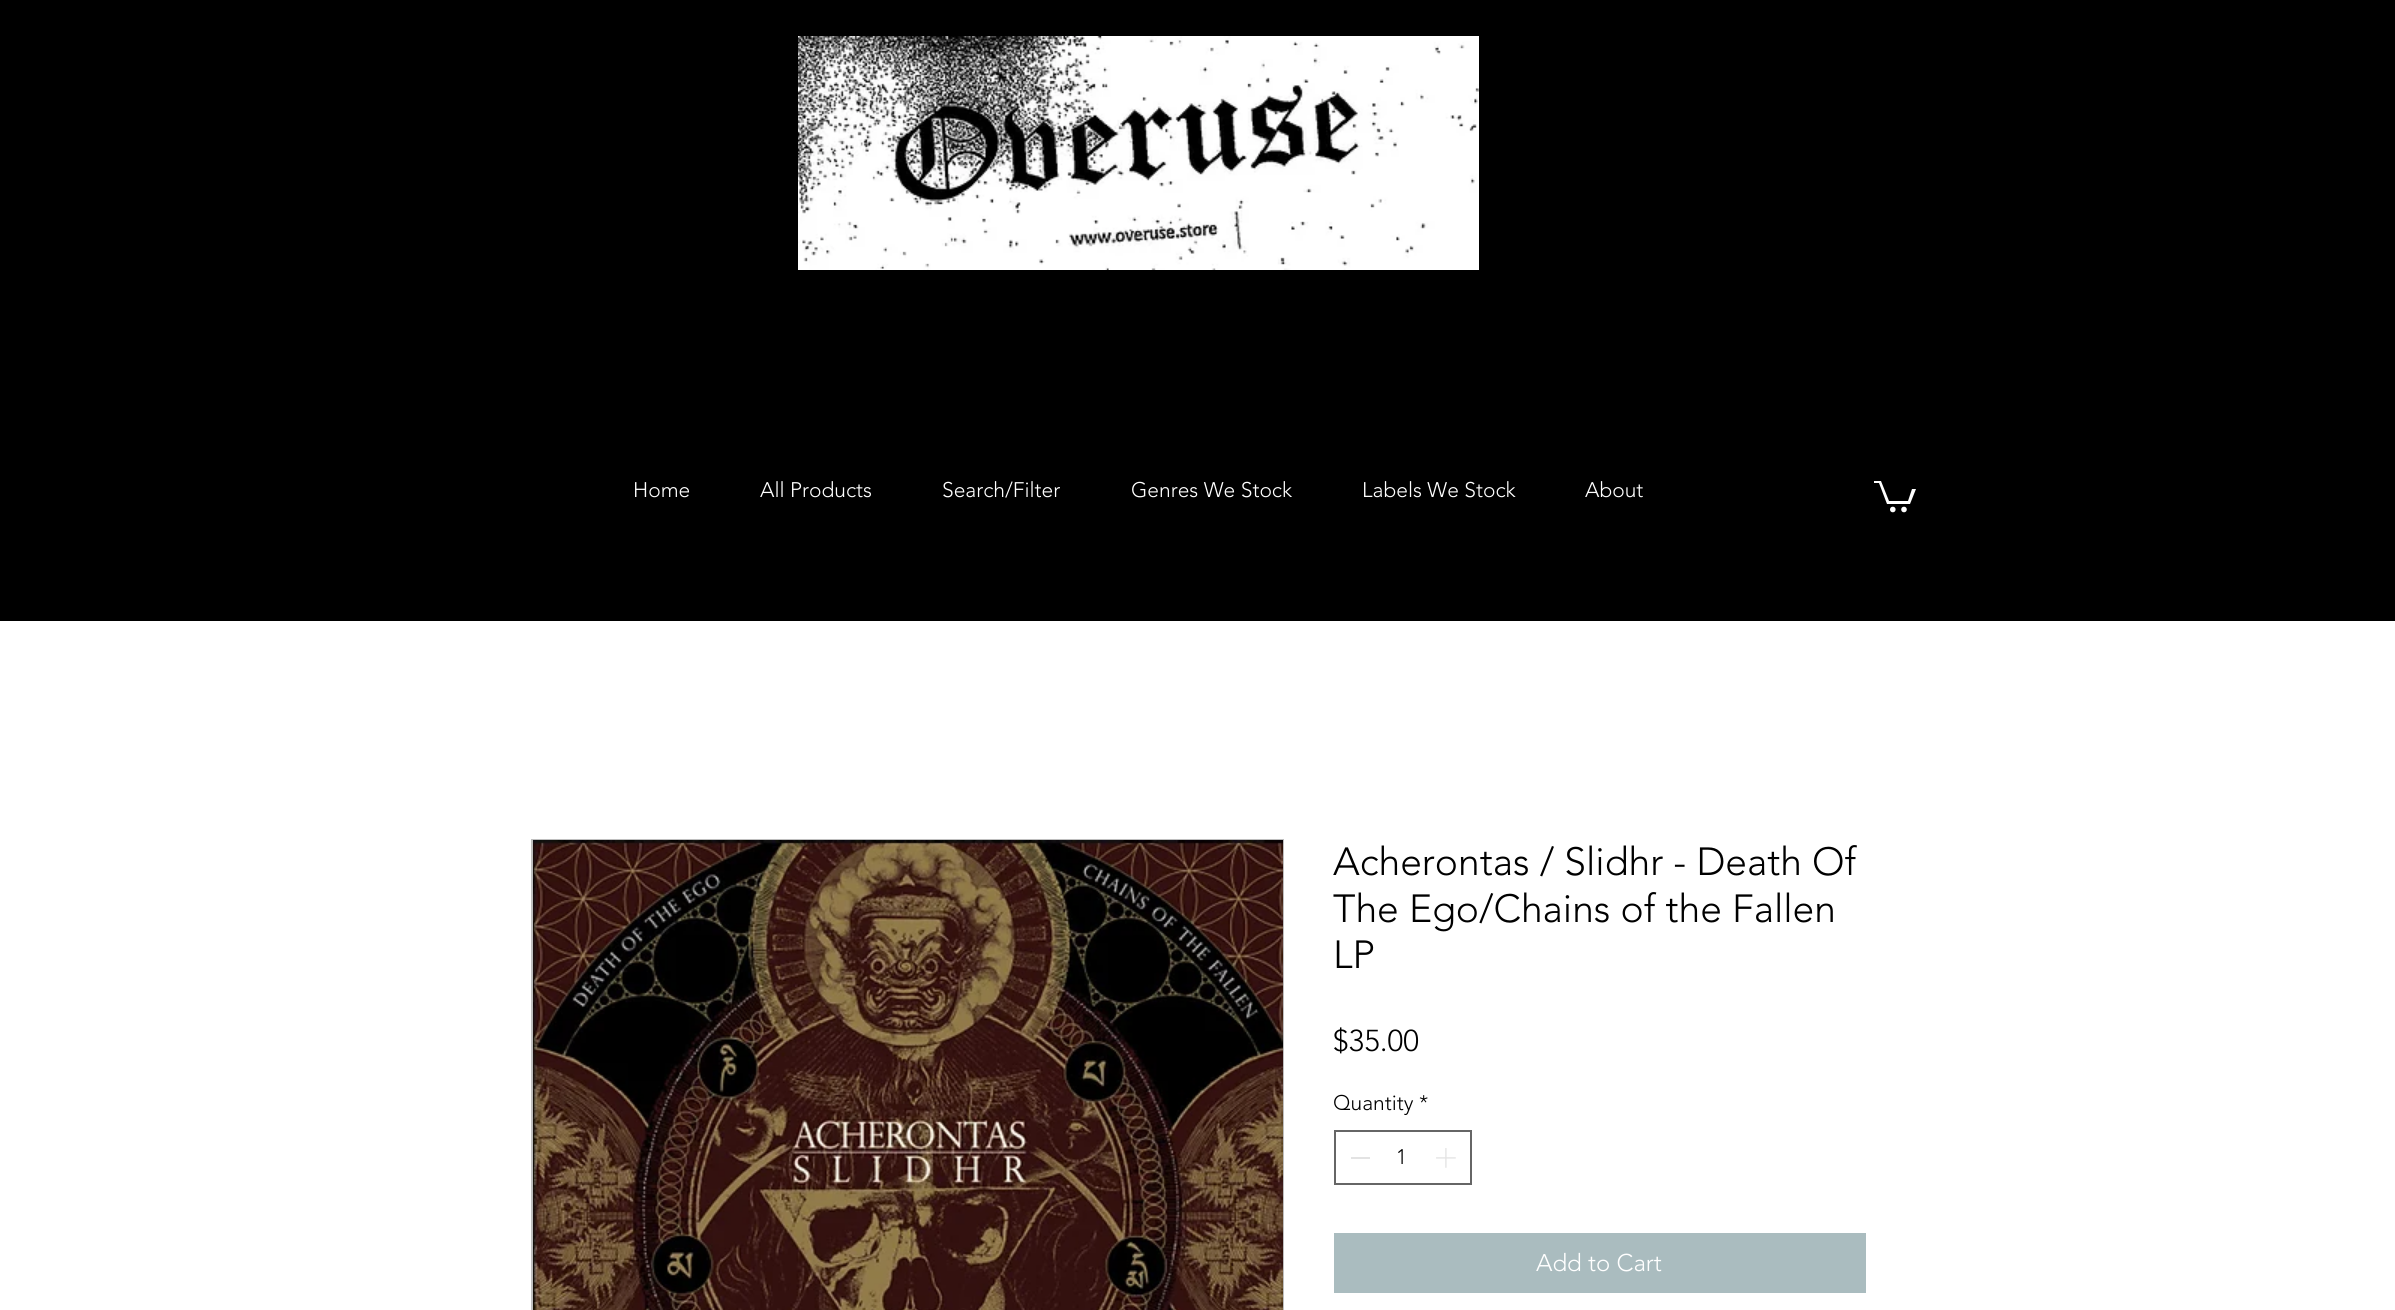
#include <cairo.h>
#include <math.h>
#include <stddef.h>


static void rgb(cairo_t *cr, int r, int g, int b)
{
	cairo_set_source_rgb(cr, r / 255.0, g / 255.0, b / 255.0);
}

static void face(cairo_t *cr, const char *family, double size, int italic, int bold)
{
	cairo_select_font_face(cr, family, italic ? CAIRO_FONT_SLANT_ITALIC : CAIRO_FONT_SLANT_NORMAL,
		bold ? CAIRO_FONT_WEIGHT_BOLD : CAIRO_FONT_WEIGHT_NORMAL);
	cairo_set_font_size(cr, size);
}

static void label(cairo_t *cr, double x, double y, const char *s)
{
	cairo_move_to(cr, x, y);
	cairo_show_text(cr, s);
}

static void rect(cairo_t *cr, double x, double y, double w, double h)
{
	cairo_rectangle(cr, x, y, w, h);
	cairo_fill(cr);
}

static void image(cairo_t *cr, const char *path, double x, double y, double w, double h)
{
	cairo_surface_t *image = cairo_image_surface_create_from_png(path);
	cairo_save(cr);
	cairo_set_source_surface(cr, image, x, y);
	cairo_rectangle(cr, x, y, w, h);
	cairo_fill(cr);
	cairo_restore(cr);
	cairo_surface_destroy(image);
}

static void draw(cairo_t *cr) {
	rgb(cr, 255, 255, 255);
	cairo_paint(cr);
	rgb(cr, 0, 0, 0);
	rect(cr, 0, 0, 2395, 621);
	image(cr, "image0.png", 798, 36, 681, 234);
	face(cr, "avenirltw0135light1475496 Light", 21, 0, 0);
	rgb(cr, 255, 255, 255);
	label(cr, 633, 497, "Home");
	label(cr, 760, 497, "All Products");
	label(cr, 942, 497, "Search/Filter");
	label(cr, 1131, 497, "Genres We Stock");
	label(cr, 1362, 497, "Labels We Stock");
	label(cr, 1585, 497, "About");
	cairo_new_path(cr);
	cairo_move_to(cr, 1916, 489);
	cairo_line_to(cr, 1910, 504);
	cairo_line_to(cr, 1887, 504);
	cairo_line_to(cr, 1879, 483);
	cairo_line_to(cr, 1874, 483);
	cairo_line_to(cr, 1874, 481);
	cairo_line_to(cr, 1881, 481);
	cairo_line_to(cr, 1889, 501);
	cairo_line_to(cr, 1908, 501);
	cairo_line_to(cr, 1912, 489);
	cairo_fill(cr);
	cairo_arc(cr, 1904, 509.5, 2.8, 0, 2 * M_PI);
	cairo_fill(cr);
	cairo_arc(cr, 1892.8, 509.5, 2.8, 0, 2 * M_PI);
	cairo_fill(cr);
	cairo_rectangle(cr, 532, 840, 751, 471);
	rgb(cr, 191, 191, 191);
	cairo_stroke(cr);
	image(cr, "image1.png", 533, 840, 750, 470);
	face(cr, "avenirltw0135light1475496 Light", 39, 0, 0);
	rgb(cr, 0, 0, 0);
	label(cr, 1333, 875, "Acherontas / Slidhr - Death Of");
	label(cr, 1333, 922, "The Ego/Chains of the Fallen");
	label(cr, 1333, 968, "LP");
	face(cr, "avenirltw0135light1475496 Light", 30, 0, 0);
	label(cr, 1333, 1051, "$35.00");
	face(cr, "avenirltw0135light1475496 Light", 21, 0, 0);
	label(cr, 1333, 1110, "Quantity");
	label(cr, 1419, 1110, "*");
	cairo_rectangle(cr, 1335, 1131, 136, 53);
	rgb(cr, 102, 102, 102);
	cairo_stroke(cr);
	rgb(cr, 227, 227, 227);
	rect(cr, 1351, 1157, 19, 2);
	rgb(cr, 0, 0, 0);
	label(cr, 1396, 1164, "1");
	image(cr, "image2.png", 1436, 1148, 20, 20);
	rgb(cr, 170, 188, 191);
	rect(cr, 1334, 1233, 532, 60);
	face(cr, "avenirltw0135light1475496 Light", 24, 0, 0);
	rgb(cr, 255, 255, 255);
	label(cr, 1536, 1271, "Add to Cart");
}

int main(void) {
	cairo_surface_t *surface = cairo_image_surface_create(CAIRO_FORMAT_RGB24, 2395, 1310);
	cairo_t *cr = cairo_create(surface);
	cairo_font_options_t *options = cairo_font_options_create();
	cairo_font_options_set_hint_metrics(options, CAIRO_HINT_METRICS_OFF);
	cairo_font_options_set_hint_style(options, CAIRO_HINT_STYLE_NONE);
	cairo_set_font_options(cr, options);
	cairo_set_miter_limit(cr, 4);
	draw(cr);
	cairo_surface_write_to_png(surface, "render.png");
	cairo_font_options_destroy(options);
	cairo_destroy(cr);
	cairo_surface_destroy(surface);
	return 0;
}
